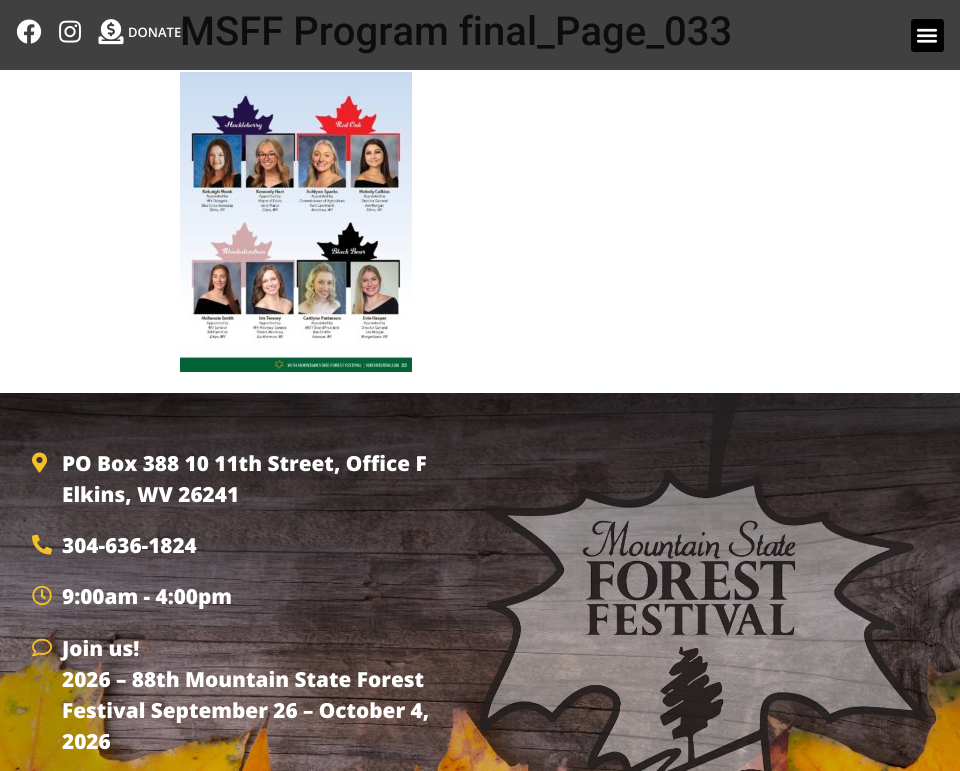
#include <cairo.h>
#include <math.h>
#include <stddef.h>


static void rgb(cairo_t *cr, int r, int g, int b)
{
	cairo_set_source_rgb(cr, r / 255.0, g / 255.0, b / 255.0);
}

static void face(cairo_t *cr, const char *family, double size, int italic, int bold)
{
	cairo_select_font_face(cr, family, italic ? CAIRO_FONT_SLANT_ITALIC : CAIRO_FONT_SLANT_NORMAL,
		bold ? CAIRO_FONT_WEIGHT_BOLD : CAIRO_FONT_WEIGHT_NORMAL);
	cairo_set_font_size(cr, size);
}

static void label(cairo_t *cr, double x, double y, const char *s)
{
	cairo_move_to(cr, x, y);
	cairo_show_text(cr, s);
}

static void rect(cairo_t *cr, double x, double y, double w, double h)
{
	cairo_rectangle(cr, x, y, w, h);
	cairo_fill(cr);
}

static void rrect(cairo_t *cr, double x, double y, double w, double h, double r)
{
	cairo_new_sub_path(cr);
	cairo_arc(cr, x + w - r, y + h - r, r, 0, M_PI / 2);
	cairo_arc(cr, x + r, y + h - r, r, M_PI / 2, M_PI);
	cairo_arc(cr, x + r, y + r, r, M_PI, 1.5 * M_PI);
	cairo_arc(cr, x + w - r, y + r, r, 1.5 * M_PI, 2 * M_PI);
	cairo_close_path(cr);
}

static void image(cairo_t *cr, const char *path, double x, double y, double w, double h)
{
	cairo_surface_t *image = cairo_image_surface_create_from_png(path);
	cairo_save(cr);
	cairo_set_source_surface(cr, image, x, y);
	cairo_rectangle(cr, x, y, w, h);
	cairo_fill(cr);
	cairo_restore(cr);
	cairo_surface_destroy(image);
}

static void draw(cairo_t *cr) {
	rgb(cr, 255, 255, 255);
	cairo_paint(cr);
	rgb(cr, 64, 64, 64);
	rect(cr, 0, 0, 960, 70);
	image(cr, "image0.png", 16, 19, 26, 25);
	image(cr, "image1.png", 59, 20, 22, 23);
	image(cr, "image2.png", 98, 19, 26, 26);
	face(cr, "Open Sans SemiBold", 13, 0, 0);
	rgb(cr, 255, 255, 255);
	label(cr, 128, 37, "DONATE");
	rgb(cr, 0, 0, 0);
	rrect(cr, 911, 19, 33, 33, 3);
	cairo_fill(cr);
	image(cr, "image3.png", 916, 28, 22, 15);
	face(cr, "Roboto Medium", 40, 0, 0);
	rgb(cr, 13, 13, 13);
	label(cr, 180, 45, "MSFF Program final_Page_033");
	image(cr, "image4.png", 180, 72, 232, 300);
	image(cr, "image5.png", 0, 393, 960, 378);
	image(cr, "image6.png", 32, 452, 15, 21);
	face(cr, "Open Sans ExtraBold", 20.75, 0, 0);
	rgb(cr, 255, 255, 255);
	label(cr, 62, 471, "PO Box 388 10 11th Street, Office F");
	label(cr, 62, 502, "Elkins, WV 26241");
	image(cr, "image7.png", 32, 534, 20, 21);
	label(cr, 62, 553, "304-636-1824");
	image(cr, "image8.png", 32, 585, 20, 21);
	label(cr, 62, 604, "9:00am - 4:00pm");
	image(cr, "image9.png", 32, 638, 20, 19);
	label(cr, 62, 656, "Join us!");
	label(cr, 62, 687, "2026 – 88th Mountain State Forest");
	label(cr, 62, 718, "Festival September 26 – October 4,");
	label(cr, 62, 749, "2026");
	image(cr, "image10.png", 480, 393, 448, 378);
}

int main(void) {
	cairo_surface_t *surface = cairo_image_surface_create(CAIRO_FORMAT_RGB24, 960, 771);
	cairo_t *cr = cairo_create(surface);
	cairo_font_options_t *options = cairo_font_options_create();
	cairo_font_options_set_hint_metrics(options, CAIRO_HINT_METRICS_OFF);
	cairo_font_options_set_hint_style(options, CAIRO_HINT_STYLE_NONE);
	cairo_set_font_options(cr, options);
	cairo_set_miter_limit(cr, 4);
	draw(cr);
	cairo_surface_write_to_png(surface, "render.png");
	cairo_font_options_destroy(options);
	cairo_destroy(cr);
	cairo_surface_destroy(surface);
	return 0;
}
